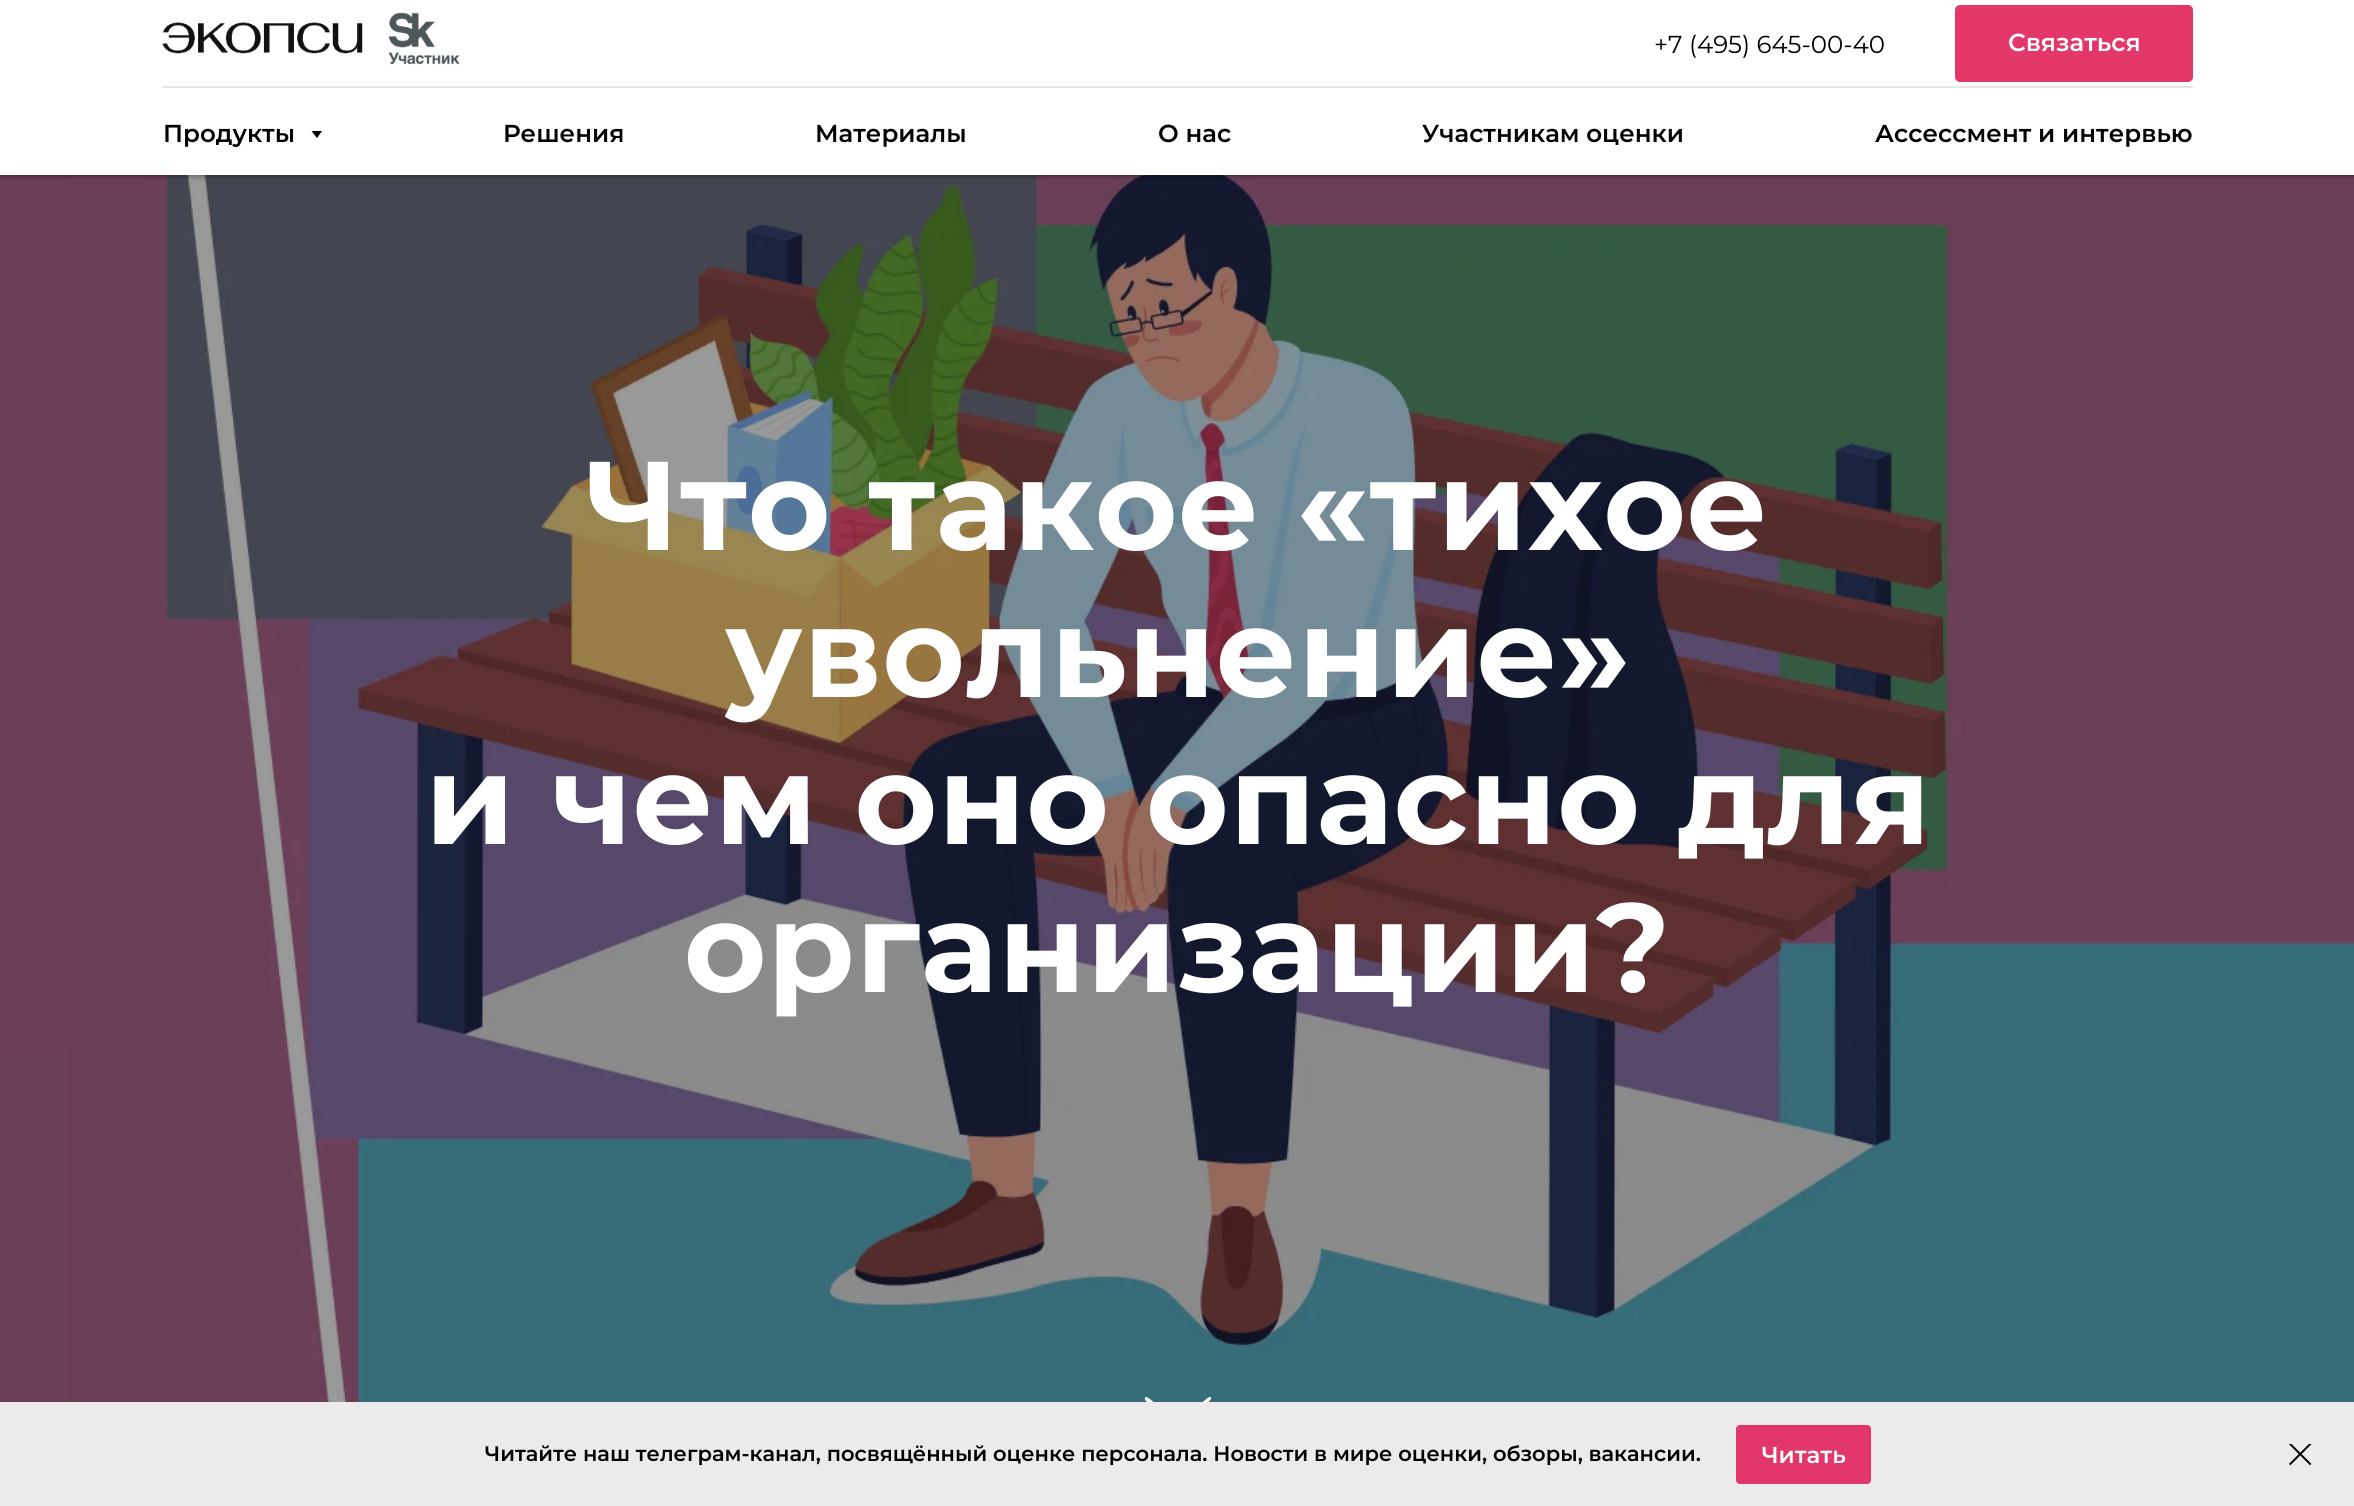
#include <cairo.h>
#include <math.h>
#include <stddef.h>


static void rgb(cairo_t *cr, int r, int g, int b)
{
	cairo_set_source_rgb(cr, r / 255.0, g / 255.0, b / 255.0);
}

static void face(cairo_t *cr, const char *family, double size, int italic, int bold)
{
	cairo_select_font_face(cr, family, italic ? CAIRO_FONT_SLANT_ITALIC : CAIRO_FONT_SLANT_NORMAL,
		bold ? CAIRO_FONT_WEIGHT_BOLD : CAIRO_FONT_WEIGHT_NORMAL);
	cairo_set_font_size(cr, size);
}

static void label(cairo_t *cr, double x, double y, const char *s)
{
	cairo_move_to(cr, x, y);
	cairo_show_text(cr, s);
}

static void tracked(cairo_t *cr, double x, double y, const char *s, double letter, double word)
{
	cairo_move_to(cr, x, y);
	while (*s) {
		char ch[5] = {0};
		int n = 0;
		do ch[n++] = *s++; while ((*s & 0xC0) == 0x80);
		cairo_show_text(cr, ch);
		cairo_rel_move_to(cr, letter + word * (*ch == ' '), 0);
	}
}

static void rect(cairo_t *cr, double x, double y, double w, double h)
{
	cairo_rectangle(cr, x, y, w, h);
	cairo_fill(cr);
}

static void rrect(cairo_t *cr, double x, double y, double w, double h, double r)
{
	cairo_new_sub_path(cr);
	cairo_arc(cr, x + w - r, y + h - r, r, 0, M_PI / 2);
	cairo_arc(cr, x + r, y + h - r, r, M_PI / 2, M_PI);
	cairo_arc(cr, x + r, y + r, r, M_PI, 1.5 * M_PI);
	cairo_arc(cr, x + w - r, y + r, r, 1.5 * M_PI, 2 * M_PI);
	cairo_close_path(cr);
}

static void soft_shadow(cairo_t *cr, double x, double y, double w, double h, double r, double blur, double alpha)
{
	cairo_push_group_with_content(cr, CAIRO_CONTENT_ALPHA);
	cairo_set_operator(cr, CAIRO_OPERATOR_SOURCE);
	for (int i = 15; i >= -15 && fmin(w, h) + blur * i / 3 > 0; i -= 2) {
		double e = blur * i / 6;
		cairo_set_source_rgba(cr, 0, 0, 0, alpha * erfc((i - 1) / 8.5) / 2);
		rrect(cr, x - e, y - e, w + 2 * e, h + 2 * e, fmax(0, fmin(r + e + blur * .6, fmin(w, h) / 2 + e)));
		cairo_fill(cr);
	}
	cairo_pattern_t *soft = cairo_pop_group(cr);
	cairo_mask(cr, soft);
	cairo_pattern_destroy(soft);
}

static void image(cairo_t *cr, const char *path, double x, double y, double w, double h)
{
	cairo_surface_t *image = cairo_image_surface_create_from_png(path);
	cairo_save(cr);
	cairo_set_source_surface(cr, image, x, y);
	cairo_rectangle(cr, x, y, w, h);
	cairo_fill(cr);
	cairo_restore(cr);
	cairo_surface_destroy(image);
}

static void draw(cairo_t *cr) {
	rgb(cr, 255, 255, 255);
	cairo_paint(cr);
	image(cr, "image1.png", 0, 175, 81, 1227);
	image(cr, "image2.png", 81, 175, 2273, 1227);
	rgb(cr, 0, 0, 0);
	soft_shadow(cr, 0, 2, 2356, 175, 0, 2.5, 0.3);
	rgb(cr, 255, 255, 255);
	rect(cr, 0, 0, 2354, 175);
	image(cr, "image0.png", 162, 12, 298, 53);
	face(cr, "Montserrat", 24.5, 0, 0);
	rgb(cr, 0, 0, 0);
	label(cr, 1654, 53, "+7 (495) 645-00-40");
	rgb(cr, 227, 54, 105);
	rrect(cr, 1955, 5, 238, 77, 5);
	cairo_fill(cr);
	face(cr, "Montserrat SemiBold", 24.5, 0, 0);
	rgb(cr, 255, 255, 255);
	label(cr, 2008, 51, "Связаться");
	rgb(cr, 230, 230, 230);
	rect(cr, 163, 86, 2030, 2);
	rgb(cr, 0, 0, 0);
	label(cr, 163, 142, "Продукты");
	cairo_new_path(cr);
	cairo_move_to(cr, 311.5, 131);
	cairo_line_to(cr, 322, 131);
	cairo_line_to(cr, 317, 138);
	cairo_close_path(cr);
	cairo_fill(cr);
	label(cr, 503, 142, "Решения");
	label(cr, 815, 142, "Материалы");
	label(cr, 1158, 142, "О нас");
	label(cr, 1422, 142, "Участникам оценки");
	label(cr, 1875, 142, "Ассессмент и интервью");
	face(cr, "Montserrat", 126, 0, 1);
	rgb(cr, 255, 255, 255);
	tracked(cr, 587, 550, "Что такое «тихое", 0.9, 0);
	tracked(cr, 725, 697, "увольнение»", 0.9, 0);
	tracked(cr, 425, 844, "и чем оно опасно для", 0.9, 0);
	tracked(cr, 684, 992, "организации?", 0.9, 0);
	cairo_save(cr);
	cairo_rectangle(cr, 1145, 1397, 66, 33);
	cairo_clip(cr);
	cairo_new_path(cr);
	cairo_move_to(cr, 1178, 1429);
	cairo_curve_to(cr, 1177, 1429, 1149, 1403, 1145, 1400);
	cairo_curve_to(cr, 1144, 1399, 1145, 1397, 1146, 1397);
	cairo_curve_to(cr, 1148, 1396, 1161, 1409, 1163, 1411);
	cairo_line_to(cr, 1178, 1425);
	cairo_line_to(cr, 1193, 1411);
	cairo_curve_to(cr, 1196, 1409, 1208, 1396, 1210, 1397);
	cairo_curve_to(cr, 1212, 1397, 1212, 1398, 1211, 1399);
	cairo_curve_to(cr, 1210, 1402, 1179, 1429, 1178, 1429);
	cairo_close_path(cr);
	cairo_fill(cr);
	cairo_restore(cr);
	rgb(cr, 235, 235, 235);
	rect(cr, 0, 1402, 2354, 104);
	face(cr, "Montserrat SemiBold", 21, 0, 0);
	rgb(cr, 0, 0, 0);
	label(cr, 485, 1461, "Читайте наш телеграм-канал, посвящённый оценке персонала. Новости в мире оценки, обзоры, вакансии.");
	rgb(cr, 227, 54, 106);
	rrect(cr, 1736, 1425, 135, 59, 4);
	cairo_fill(cr);
	face(cr, "Montserrat SemiBold", 23, 0, 0);
	rgb(cr, 255, 255, 255);
	label(cr, 1762, 1463, "Читать");
	image(cr, "image3.png", 2289, 1444, 23, 22);
}

int main(void) {
	cairo_surface_t *surface = cairo_image_surface_create(CAIRO_FORMAT_RGB24, 2354, 1506);
	cairo_t *cr = cairo_create(surface);
	cairo_font_options_t *options = cairo_font_options_create();
	cairo_font_options_set_hint_metrics(options, CAIRO_HINT_METRICS_OFF);
	cairo_font_options_set_hint_style(options, CAIRO_HINT_STYLE_NONE);
	cairo_set_font_options(cr, options);
	cairo_set_miter_limit(cr, 4);
	draw(cr);
	cairo_surface_write_to_png(surface, "render.png");
	cairo_font_options_destroy(options);
	cairo_destroy(cr);
	cairo_surface_destroy(surface);
	return 0;
}
